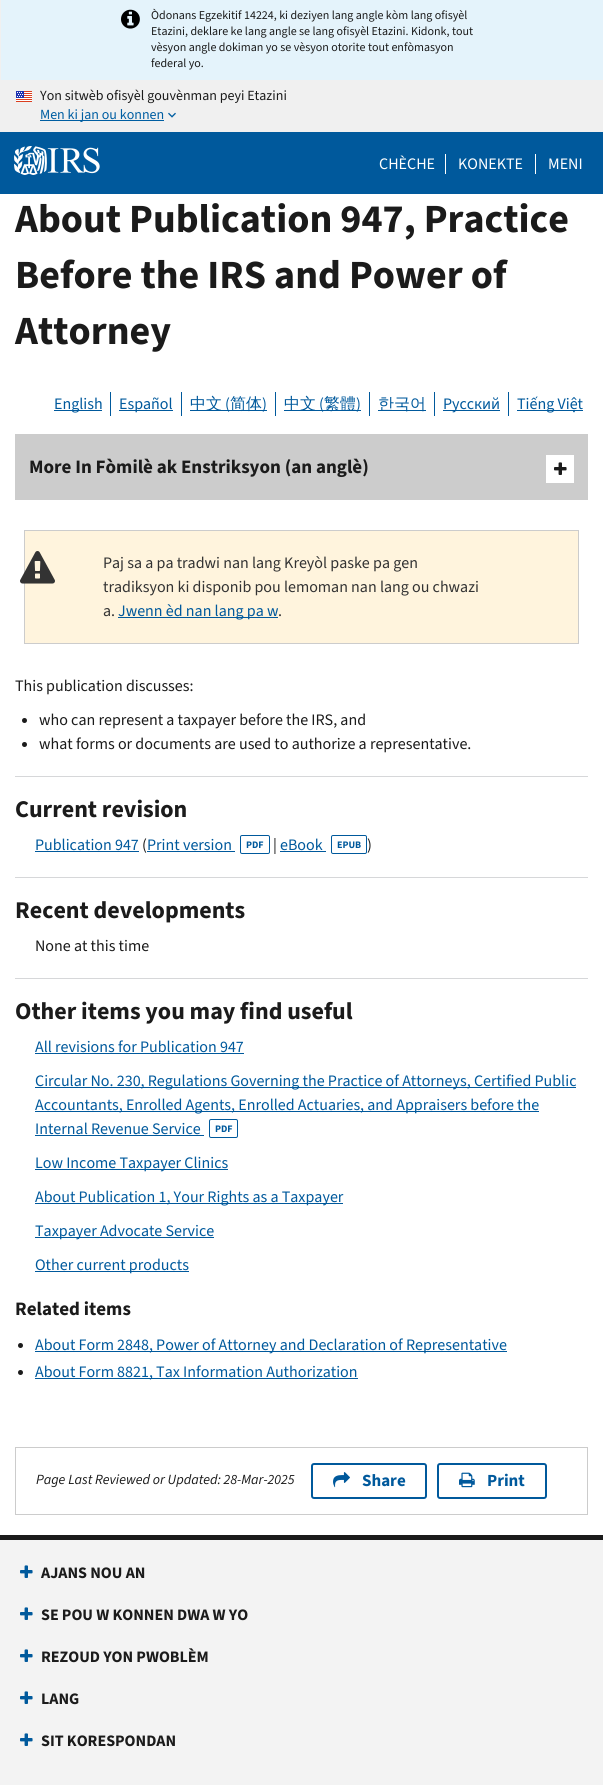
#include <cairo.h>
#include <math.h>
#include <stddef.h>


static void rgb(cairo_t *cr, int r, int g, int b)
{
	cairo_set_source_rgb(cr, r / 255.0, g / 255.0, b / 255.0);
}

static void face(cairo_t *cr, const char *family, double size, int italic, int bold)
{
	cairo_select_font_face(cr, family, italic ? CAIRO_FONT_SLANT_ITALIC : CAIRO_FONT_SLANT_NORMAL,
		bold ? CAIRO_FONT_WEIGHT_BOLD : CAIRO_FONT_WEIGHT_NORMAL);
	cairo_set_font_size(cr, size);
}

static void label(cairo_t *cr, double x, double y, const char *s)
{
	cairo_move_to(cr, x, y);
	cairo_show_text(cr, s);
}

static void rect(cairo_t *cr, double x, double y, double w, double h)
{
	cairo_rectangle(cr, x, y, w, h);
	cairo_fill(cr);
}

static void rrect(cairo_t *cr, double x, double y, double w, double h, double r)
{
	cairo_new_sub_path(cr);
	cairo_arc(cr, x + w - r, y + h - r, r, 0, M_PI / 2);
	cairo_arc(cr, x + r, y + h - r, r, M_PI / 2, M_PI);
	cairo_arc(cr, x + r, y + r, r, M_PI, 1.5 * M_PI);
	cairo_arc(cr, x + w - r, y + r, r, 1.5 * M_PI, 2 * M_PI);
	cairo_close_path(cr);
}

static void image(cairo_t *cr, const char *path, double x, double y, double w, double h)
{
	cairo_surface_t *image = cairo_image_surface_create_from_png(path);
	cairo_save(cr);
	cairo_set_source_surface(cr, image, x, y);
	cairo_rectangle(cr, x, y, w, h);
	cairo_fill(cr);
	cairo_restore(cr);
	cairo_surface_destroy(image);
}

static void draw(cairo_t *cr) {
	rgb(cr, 255, 255, 255);
	cairo_paint(cr);
	rgb(cr, 240, 240, 240);
	rect(cr, 0, 0, 603, 132);
	rgb(cr, 228, 243, 251);
	rect(cr, 1, 0, 602, 80);
	image(cr, "image0.png", 121, 9, 19, 20);
	face(cr, "Source Sans 3", 12, 0, 0);
	rgb(cr, 27, 27, 27);
	label(cr, 151, 19, "Òdonans Egzekitif 14224, ki deziyen lang angle kòm lang ofisyèl");
	label(cr, 151, 35, "Etazini, deklare ke lang angle se lang ofisyèl Etazini. Kidonk, tout");
	label(cr, 151, 51, "vèsyon angle dokiman yo se vèsyon otorite tout enfòmasyon");
	label(cr, 151, 67, "federal yo.");
	image(cr, "image1.png", 16, 91, 16, 11);
	face(cr, "Source Sans 3", 14, 0, 0);
	label(cr, 40, 100, "Yon sitwèb ofisyèl gouvènman peyi Etazini");
	rgb(cr, 0, 94, 162);
	rect(cr, 40, 120, 124, 1);
	label(cr, 40, 119, "Men ki jan ou konnen");
	image(cr, "image2.png", 168, 112, 8, 6);
	rgb(cr, 0, 89, 156);
	rect(cr, 0, 132, 603, 62);
	image(cr, "image3.png", 14, 146, 86, 29);
	rgb(cr, 255, 255, 255);
	rect(cr, 445, 154, 1, 20);
	face(cr, "Source Sans 3", 16, 0, 0);
	label(cr, 379, 169, "CHÈCHE");
	rect(cr, 535, 154, 1, 20);
	label(cr, 458, 169, "KONEKTE");
	label(cr, 548, 169, "MENI");
	face(cr, "Source Sans 3", 40, 0, 1);
	rgb(cr, 27, 27, 27);
	label(cr, 15, 232, "About Publication 947, Practice");
	label(cr, 15, 288, "Before the IRS and Power of");
	label(cr, 15, 344, "Attorney");
	rgb(cr, 0, 89, 156);
	rect(cr, 54, 410, 48, 1);
	face(cr, "Source Sans 3", 16, 0, 0);
	label(cr, 54, 409, "English");
	rect(cr, 110, 392, 1, 24);
	rect(cr, 119, 410, 54, 1);
	label(cr, 119, 409, "Español");
	rect(cr, 181, 392, 1, 24);
	rect(cr, 190, 410, 77, 1);
	face(cr, "WenQuanYi Zen Hei Medium", 16, 0, 0);
	label(cr, 190, 409, "中文");
	face(cr, "Source Sans 3", 16, 0, 0);
	label(cr, 225, 409, "(");
	face(cr, "WenQuanYi Zen Hei Medium", 16, 0, 0);
	label(cr, 230, 409, "简体");
	face(cr, "Source Sans 3", 16, 0, 0);
	label(cr, 262, 409, ")");
	rect(cr, 275, 392, 1, 24);
	rect(cr, 284, 410, 77, 1);
	face(cr, "WenQuanYi Zen Hei Medium", 16, 0, 0);
	label(cr, 284, 409, "中文");
	face(cr, "Source Sans 3", 16, 0, 0);
	label(cr, 319, 409, "(");
	face(cr, "WenQuanYi Zen Hei Medium", 16, 0, 0);
	label(cr, 324, 409, "繁體");
	face(cr, "Source Sans 3", 16, 0, 0);
	label(cr, 356, 409, ")");
	rect(cr, 369, 392, 1, 24);
	rect(cr, 378, 410, 48, 1);
	face(cr, "WenQuanYi Zen Hei Medium", 16, 0, 0);
	label(cr, 378, 409, "한국어");
	rect(cr, 434, 392, 1, 24);
	rect(cr, 443, 410, 57, 1);
	face(cr, "Source Sans 3", 16, 0, 0);
	label(cr, 443, 409, "Русский");
	rect(cr, 508, 392, 1, 24);
	rect(cr, 517, 410, 66, 1);
	label(cr, 517, 409, "Tiếng Việt");
	rgb(cr, 204, 204, 204);
	rect(cr, 15, 434, 573, 66);
	face(cr, "Source Sans 3", 19, 0, 1);
	rgb(cr, 27, 27, 27);
	label(cr, 29, 473, "More In Fòmilè ak Enstriksyon (an anglè)");
	rgb(cr, 255, 255, 255);
	rect(cr, 546, 455, 28, 28);
	image(cr, "image4.png", 554, 462, 13, 13);
	rgb(cr, 255, 244, 221);
	cairo_rectangle(cr, 24.5, 530.5, 554, 113);
	cairo_fill_preserve(cr);
	rgb(cr, 204, 204, 204);
	cairo_set_line_width(cr, 1);
	cairo_stroke(cr);
	image(cr, "image5.png", 20, 551, 35, 33);
	face(cr, "Source Sans 3", 16, 0, 0);
	rgb(cr, 51, 51, 51);
	label(cr, 103, 568, "Paj sa a pa tradwi nan lang Kreyòl paske pa gen");
	label(cr, 103, 592, "tradiksyon ki disponib pou lemoman nan lang ou chwazi");
	label(cr, 103, 616, "a.");
	rgb(cr, 0, 89, 156);
	rect(cr, 118, 617, 160, 1);
	label(cr, 118, 616, "Jwenn èd nan lang pa w");
	rgb(cr, 51, 51, 51);
	label(cr, 278, 616, ".");
	rgb(cr, 27, 27, 27);
	label(cr, 15, 691, "This publication discusses:");
	cairo_new_path(cr);
	cairo_arc(cr, 24.5, 720.5, 2.5, 0, 2 * M_PI);
	cairo_fill(cr);
	label(cr, 39, 725, "who can represent a taxpayer before the IRS, and");
	cairo_new_path(cr);
	cairo_arc(cr, 24.5, 744.5, 2.5, 0, 2 * M_PI);
	cairo_fill(cr);
	label(cr, 39, 749, "what forms or documents are used to authorize a representative.");
	rgb(cr, 214, 215, 217);
	rect(cr, 15, 776, 573, 1);
	face(cr, "Source Sans 3", 24, 0, 1);
	rgb(cr, 27, 27, 27);
	label(cr, 15, 817, "Current revision");
	face(cr, "Source Sans 3", 16, 0, 0);
	rgb(cr, 0, 89, 156);
	label(cr, 35, 850, "Publication 947");
	rect(cr, 35, 851, 104, 1);
	rgb(cr, 27, 27, 27);
	label(cr, 142, 850, "(");
	rgb(cr, 0, 89, 156);
	label(cr, 147, 850, "Print version");
	rect(cr, 147, 851, 88, 1);
	rrect(cr, 240.5, 835.5, 29, 18, 1.5);
	cairo_stroke(cr);
	face(cr, "Source Sans 3", 10, 0, 1);
	label(cr, 246, 848, "PDF");
	face(cr, "Source Sans 3", 16, 0, 0);
	rgb(cr, 27, 27, 27);
	label(cr, 273, 850, "|");
	rgb(cr, 0, 89, 156);
	label(cr, 280, 850, "eBook");
	rect(cr, 280, 851, 46, 1);
	rrect(cr, 331.5, 835.5, 35, 18, 1.5);
	cairo_stroke(cr);
	face(cr, "Source Sans 3", 10, 0, 1);
	label(cr, 337, 848, "EPUB");
	face(cr, "Source Sans 3", 16, 0, 0);
	rgb(cr, 27, 27, 27);
	label(cr, 367, 850, ")");
	rgb(cr, 214, 215, 217);
	rect(cr, 15, 877, 573, 1);
	face(cr, "Source Sans 3", 24, 0, 1);
	rgb(cr, 27, 27, 27);
	label(cr, 15, 918, "Recent developments");
	face(cr, "Source Sans 3", 16, 0, 0);
	label(cr, 35, 951, "None at this time");
	rgb(cr, 214, 215, 217);
	rect(cr, 15, 978, 573, 1);
	face(cr, "Source Sans 3", 24, 0, 1);
	rgb(cr, 27, 27, 27);
	label(cr, 15, 1019, "Other items you may find useful");
	face(cr, "Source Sans 3", 16, 0, 0);
	rgb(cr, 0, 89, 156);
	label(cr, 35, 1052, "All revisions for Publication 947");
	rect(cr, 35, 1053, 209, 1);
	rect(cr, 35, 1087, 541, 1);
	label(cr, 35, 1086, "Circular No. 230, Regulations Governing the Practice of Attorneys, Certified Public");
	rect(cr, 35, 1111, 504, 1);
	label(cr, 35, 1110, "Accountants, Enrolled Agents, Enrolled Actuaries, and Appraisers before the");
	label(cr, 35, 1134, "Internal Revenue Service");
	rect(cr, 35, 1135, 169, 1);
	rrect(cr, 209.5, 1119.5, 28, 18, 1.5);
	cairo_stroke(cr);
	face(cr, "Source Sans 3", 10, 0, 1);
	label(cr, 215, 1132, "PDF");
	rect(cr, 35, 1169, 193, 1);
	face(cr, "Source Sans 3", 16, 0, 0);
	label(cr, 35, 1168, "Low Income Taxpayer Clinics");
	rect(cr, 35, 1203, 308, 1);
	label(cr, 35, 1202, "About Publication 1, Your Rights as a Taxpayer");
	rect(cr, 35, 1237, 179, 1);
	label(cr, 35, 1236, "Taxpayer Advocate Service");
	rect(cr, 35, 1271, 154, 1);
	label(cr, 35, 1270, "Other current products");
	face(cr, "Source Sans 3", 19, 0, 1);
	rgb(cr, 27, 27, 27);
	label(cr, 15, 1315, "Related items");
	cairo_new_path(cr);
	cairo_arc(cr, 20.5, 1345.5, 2.5, 0, 2 * M_PI);
	cairo_fill(cr);
	rgb(cr, 0, 89, 156);
	rect(cr, 35, 1351, 472, 1);
	face(cr, "Source Sans 3", 16, 0, 0);
	label(cr, 35, 1350, "About Form 2848, Power of Attorney and Declaration of Representative");
	rgb(cr, 27, 27, 27);
	cairo_new_path(cr);
	cairo_arc(cr, 20.5, 1372.5, 2.5, 0, 2 * M_PI);
	cairo_fill(cr);
	rgb(cr, 0, 89, 156);
	rect(cr, 35, 1378, 323, 1);
	label(cr, 35, 1377, "About Form 8821, Tax Information Authorization");
	cairo_rectangle(cr, 15.5, 1447.5, 572, 67);
	rgb(cr, 204, 204, 204);
	cairo_stroke(cr);
	face(cr, "Source Sans 3", 14, 1, 0);
	rgb(cr, 27, 27, 27);
	label(cr, 36, 1484, "Page Last Reviewed or Updated: 28-Mar-2025");
	rrect(cr, 312, 1464, 114, 34, 2);
	rgb(cr, 0, 89, 156);
	cairo_set_line_width(cr, 2);
	cairo_stroke(cr);
	image(cr, "image6.png", 333, 1472, 17, 16);
	face(cr, "Source Sans 3", 17, 0, 1);
	label(cr, 362, 1486, "Share");
	rrect(cr, 438, 1464, 108, 34, 2);
	cairo_stroke(cr);
	image(cr, "image7.png", 459, 1472, 16, 16);
	label(cr, 487, 1486, "Print");
	rgb(cr, 243, 243, 243);
	rect(cr, 0, 1540, 603, 245);
	rgb(cr, 27, 27, 27);
	rect(cr, 0, 1535, 603, 5);
	image(cr, "image8.png", 20, 1565, 13, 13);
	face(cr, "Source Sans 3", 16, 0, 1);
	label(cr, 41, 1578, "AJANS NOU AN");
	image(cr, "image8.png", 20, 1607, 13, 13);
	label(cr, 41, 1620, "SE POU W KONNEN DWA W YO");
	image(cr, "image8.png", 20, 1649, 13, 13);
	label(cr, 41, 1662, "REZOUD YON PWOBLÈM");
	image(cr, "image8.png", 20, 1691, 13, 13);
	label(cr, 41, 1704, "LANG");
	image(cr, "image8.png", 20, 1733, 13, 13);
	label(cr, 41, 1746, "SIT KORESPONDAN");
}

int main(void) {
	cairo_surface_t *surface = cairo_image_surface_create(CAIRO_FORMAT_RGB24, 603, 1785);
	cairo_t *cr = cairo_create(surface);
	cairo_font_options_t *options = cairo_font_options_create();
	cairo_font_options_set_hint_metrics(options, CAIRO_HINT_METRICS_OFF);
	cairo_font_options_set_hint_style(options, CAIRO_HINT_STYLE_NONE);
	cairo_set_font_options(cr, options);
	cairo_set_miter_limit(cr, 4);
	draw(cr);
	cairo_surface_write_to_png(surface, "render.png");
	cairo_font_options_destroy(options);
	cairo_destroy(cr);
	cairo_surface_destroy(surface);
	return 0;
}
